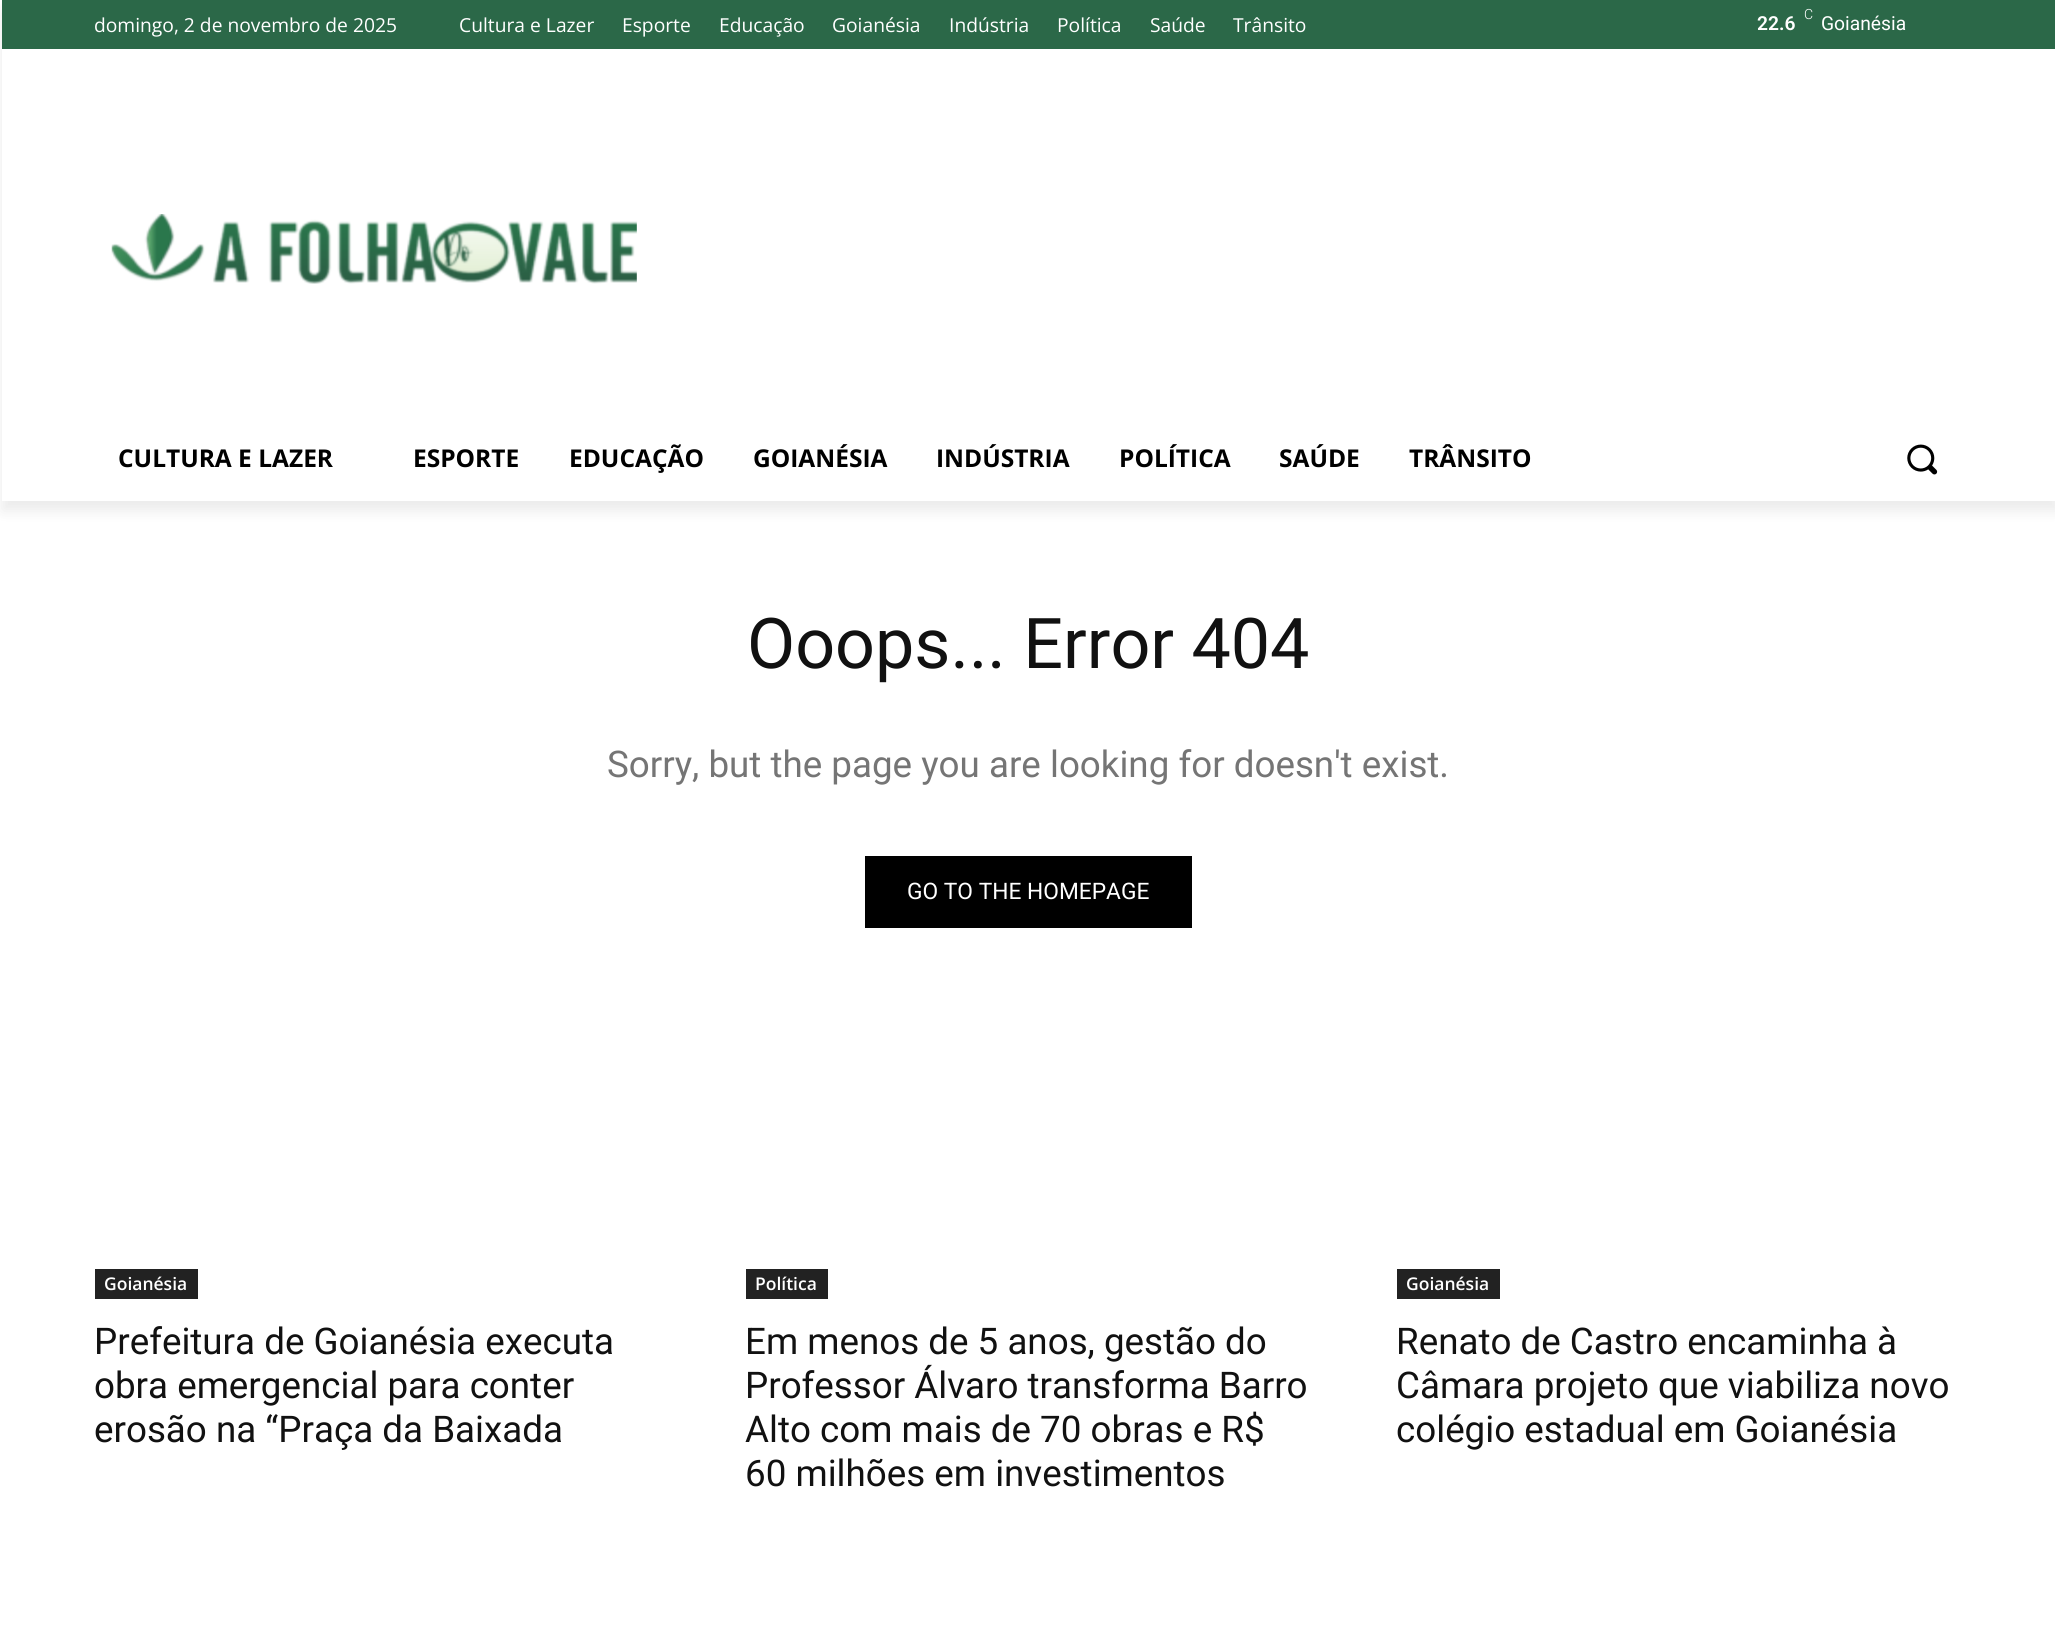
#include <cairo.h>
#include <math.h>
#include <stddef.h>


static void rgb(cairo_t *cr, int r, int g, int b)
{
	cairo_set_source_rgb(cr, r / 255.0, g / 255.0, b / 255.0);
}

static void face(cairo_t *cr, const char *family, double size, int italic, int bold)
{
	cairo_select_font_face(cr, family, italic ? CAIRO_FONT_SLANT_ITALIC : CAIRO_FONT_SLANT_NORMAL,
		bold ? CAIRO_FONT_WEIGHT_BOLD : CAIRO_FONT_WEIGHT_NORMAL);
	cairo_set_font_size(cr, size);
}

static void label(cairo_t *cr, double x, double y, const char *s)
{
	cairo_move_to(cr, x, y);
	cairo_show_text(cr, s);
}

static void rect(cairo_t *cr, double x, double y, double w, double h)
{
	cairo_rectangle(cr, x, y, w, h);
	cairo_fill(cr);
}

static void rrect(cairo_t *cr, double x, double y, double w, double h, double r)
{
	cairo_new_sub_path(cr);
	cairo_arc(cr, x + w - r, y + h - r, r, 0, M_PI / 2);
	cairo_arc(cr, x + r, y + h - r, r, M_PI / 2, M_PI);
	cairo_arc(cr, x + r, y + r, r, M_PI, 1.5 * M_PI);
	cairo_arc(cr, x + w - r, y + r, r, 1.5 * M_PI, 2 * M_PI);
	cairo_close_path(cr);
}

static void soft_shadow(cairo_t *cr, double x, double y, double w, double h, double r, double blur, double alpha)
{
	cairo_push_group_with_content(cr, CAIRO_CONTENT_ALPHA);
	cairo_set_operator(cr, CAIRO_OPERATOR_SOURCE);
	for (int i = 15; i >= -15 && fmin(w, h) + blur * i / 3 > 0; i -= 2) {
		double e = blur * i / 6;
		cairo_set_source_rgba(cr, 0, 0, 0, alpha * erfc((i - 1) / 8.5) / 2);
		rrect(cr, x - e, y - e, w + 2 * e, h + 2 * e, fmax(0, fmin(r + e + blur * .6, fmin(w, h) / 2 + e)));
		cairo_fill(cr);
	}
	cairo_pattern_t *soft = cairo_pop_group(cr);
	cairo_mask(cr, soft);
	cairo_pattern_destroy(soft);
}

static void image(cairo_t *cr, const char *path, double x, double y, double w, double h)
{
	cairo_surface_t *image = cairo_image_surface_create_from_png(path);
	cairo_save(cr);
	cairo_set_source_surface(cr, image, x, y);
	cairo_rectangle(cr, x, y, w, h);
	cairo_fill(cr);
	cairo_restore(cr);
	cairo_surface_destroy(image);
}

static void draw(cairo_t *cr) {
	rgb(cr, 255, 255, 255);
	cairo_paint(cr);
	rgb(cr, 43, 104, 72);
	rect(cr, 2, 0, 2053, 49);
	image(cr, "image0.png", 111, 214, 526, 70);
	cairo_save(cr);
	cairo_set_fill_rule(cr, CAIRO_FILL_RULE_EVEN_ODD);
	cairo_new_path(cr);
	cairo_move_to(cr, 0, 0);
	cairo_line_to(cr, 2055, 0);
	cairo_line_to(cr, 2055, 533);
	cairo_line_to(cr, 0, 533);
	cairo_close_path(cr);
	cairo_move_to(cr, 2, 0);
	cairo_line_to(cr, 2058, 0);
	cairo_line_to(cr, 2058, 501);
	cairo_line_to(cr, 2, 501);
	cairo_close_path(cr);
	cairo_clip(cr);
	rgb(cr, 0, 0, 0);
	soft_shadow(cr, 2, 11, 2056, 500, 0, 7, 0.08);
	cairo_restore(cr);
	face(cr, "Open Sans", 19.25, 0, 0);
	rgb(cr, 255, 255, 255);
	label(cr, 94, 32, "domingo, 2 de novembro de 2025");
	label(cr, 459, 32, "Cultura e Lazer");
	label(cr, 622, 32, "Esporte");
	label(cr, 719, 32, "Educação");
	label(cr, 832, 32, "Goianésia");
	label(cr, 949, 32, "Indústria");
	label(cr, 1057, 32, "Política");
	label(cr, 1150, 32, "Saúde");
	label(cr, 1233, 32, "Trânsito");
	face(cr, "Roboto Light", 14, 0, 0);
	label(cr, 1804, 19, "C");
	face(cr, "Roboto SemiBold", 19.25, 0, 0);
	label(cr, 1757, 30, "22.6");
	face(cr, "Roboto", 19.25, 0, 0);
	label(cr, 1821, 30, "Goianésia");
	face(cr, "Open Sans", 24.5, 0, 1);
	rgb(cr, 0, 0, 0);
	label(cr, 118, 467, "CULTURA E LAZER");
	label(cr, 413, 467, "ESPORTE");
	label(cr, 569, 467, "EDUCAÇÃO");
	label(cr, 753, 467, "GOIANÉSIA");
	label(cr, 936, 467, "INDÚSTRIA");
	label(cr, 1119, 467, "POLÍTICA");
	label(cr, 1279, 467, "SAÚDE");
	label(cr, 1409, 467, "TRÂNSITO");
	image(cr, "image1.png", 1907, 444, 31, 31);
	face(cr, "Roboto", 70, 0, 0);
	rgb(cr, 17, 17, 17);
	label(cr, 747, 668, "Ooops... Error 404");
	face(cr, "Roboto", 36.75, 0, 0);
	rgb(cr, 117, 117, 117);
	label(cr, 607, 777, "Sorry, but the page you are looking for doesn't exist.");
	rgb(cr, 0, 0, 0);
	rect(cr, 865, 856, 327, 72);
	face(cr, "Roboto", 22.75, 0, 0);
	rgb(cr, 255, 255, 255);
	label(cr, 907, 899, "GO TO THE HOMEPAGE");
	rgb(cr, 34, 34, 34);
	rect(cr, 95, 1269, 103, 30);
	face(cr, "Open Sans SemiBold", 17.5, 0, 0);
	rgb(cr, 255, 255, 255);
	label(cr, 104, 1290, "Goianésia");
	face(cr, "Roboto", 36.75, 0, 0);
	rgb(cr, 17, 17, 17);
	label(cr, 94, 1354, "Prefeitura de Goianésia executa");
	label(cr, 94, 1398, "obra emergencial para conter");
	label(cr, 94, 1442, "erosão na “Praça da Baixada");
	rgb(cr, 34, 34, 34);
	rect(cr, 746, 1269, 82, 30);
	face(cr, "Open Sans SemiBold", 17.5, 0, 0);
	rgb(cr, 255, 255, 255);
	label(cr, 755, 1290, "Política");
	face(cr, "Roboto", 36.75, 0, 0);
	rgb(cr, 17, 17, 17);
	label(cr, 745, 1354, "Em menos de 5 anos, gestão do");
	label(cr, 745, 1398, "Professor Álvaro transforma Barro");
	label(cr, 745, 1442, "Alto com mais de 70 obras e R$");
	label(cr, 745, 1486, "60 milhões em investimentos");
	rgb(cr, 34, 34, 34);
	rect(cr, 1397, 1269, 103, 30);
	face(cr, "Open Sans SemiBold", 17.5, 0, 0);
	rgb(cr, 255, 255, 255);
	label(cr, 1406, 1290, "Goianésia");
	face(cr, "Roboto", 36.75, 0, 0);
	rgb(cr, 17, 17, 17);
	label(cr, 1396, 1354, "Renato de Castro encaminha à");
	label(cr, 1396, 1398, "Câmara projeto que viabiliza novo");
	label(cr, 1396, 1442, "colégio estadual em Goianésia");
}

int main(void) {
	cairo_surface_t *surface = cairo_image_surface_create(CAIRO_FORMAT_RGB24, 2055, 1637);
	cairo_t *cr = cairo_create(surface);
	cairo_font_options_t *options = cairo_font_options_create();
	cairo_font_options_set_hint_metrics(options, CAIRO_HINT_METRICS_OFF);
	cairo_font_options_set_hint_style(options, CAIRO_HINT_STYLE_NONE);
	cairo_set_font_options(cr, options);
	cairo_set_miter_limit(cr, 4);
	draw(cr);
	cairo_surface_write_to_png(surface, "render.png");
	cairo_font_options_destroy(options);
	cairo_destroy(cr);
	cairo_surface_destroy(surface);
	return 0;
}
